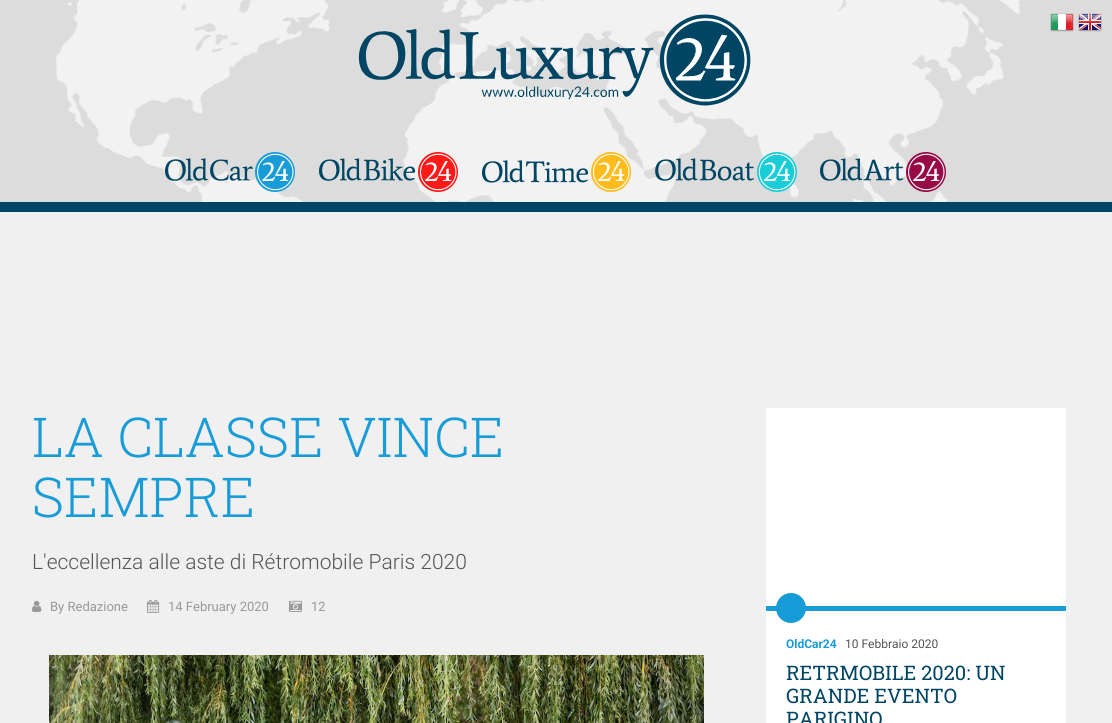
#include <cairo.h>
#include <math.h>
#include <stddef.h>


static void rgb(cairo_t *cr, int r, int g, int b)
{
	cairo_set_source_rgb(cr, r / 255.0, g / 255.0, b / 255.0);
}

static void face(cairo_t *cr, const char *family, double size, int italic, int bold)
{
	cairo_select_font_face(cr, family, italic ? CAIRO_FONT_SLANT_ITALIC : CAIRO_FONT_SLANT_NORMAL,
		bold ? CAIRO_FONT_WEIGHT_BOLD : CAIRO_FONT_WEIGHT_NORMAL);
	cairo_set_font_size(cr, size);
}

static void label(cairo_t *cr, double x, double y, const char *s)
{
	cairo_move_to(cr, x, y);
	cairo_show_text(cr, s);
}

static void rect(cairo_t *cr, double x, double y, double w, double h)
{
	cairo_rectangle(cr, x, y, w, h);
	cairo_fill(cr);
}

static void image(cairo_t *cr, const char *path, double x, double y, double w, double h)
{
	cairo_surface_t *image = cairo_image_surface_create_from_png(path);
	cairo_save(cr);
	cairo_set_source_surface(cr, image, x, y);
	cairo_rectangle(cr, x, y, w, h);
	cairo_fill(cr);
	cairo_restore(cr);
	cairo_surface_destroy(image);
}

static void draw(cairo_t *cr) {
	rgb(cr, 240, 240, 240);
	cairo_paint(cr);
	rgb(cr, 220, 220, 220);
	rect(cr, 0, 0, 1112, 202);
	image(cr, "image0.png", 56, 0, 965, 202);
	rgb(cr, 0, 69, 99);
	rect(cr, 0, 202, 1112, 10);
	image(cr, "image1.png", 358, 14, 393, 92);
	image(cr, "image2.png", 1050, 13, 24, 19);
	image(cr, "image3.png", 1078, 13, 24, 19);
	image(cr, "image4.png", 165, 152, 130, 40);
	image(cr, "image5.png", 319, 152, 139, 40);
	image(cr, "image6.png", 482, 152, 149, 40);
	image(cr, "image7.png", 655, 152, 142, 40);
	image(cr, "image8.png", 820, 152, 126, 40);
	face(cr, "Roboto Slab Light", 55, 0, 0);
	rgb(cr, 24, 156, 216);
	label(cr, 32, 457, "LA CLASSE VINCE");
	label(cr, 32, 517, "SEMPRE");
	face(cr, "Roboto Light", 21, 0, 0);
	rgb(cr, 85, 85, 85);
	label(cr, 32, 569, "L'eccellenza alle aste di Rétromobile Paris 2020");
	image(cr, "image9.png", 32, 600, 10, 12);
	face(cr, "Roboto", 13, 0, 0);
	rgb(cr, 153, 153, 153);
	label(cr, 50, 611, "By Redazione");
	image(cr, "image10.png", 147, 599, 13, 14);
	label(cr, 168, 611, "14 February 2020");
	image(cr, "image11.png", 289, 600, 13, 12);
	label(cr, 311, 611, "12");
	image(cr, "image12.png", 49, 655, 655, 68);
	rgb(cr, 255, 255, 255);
	rect(cr, 766, 408, 300, 315);
	rgb(cr, 24, 156, 216);
	rect(cr, 766, 606, 300, 5);
	cairo_arc(cr, 791, 608, 15, 0, 2 * M_PI);
	cairo_fill(cr);
	face(cr, "Roboto", 12, 0, 1);
	label(cr, 786, 648, "OldCar24");
	face(cr, "Roboto", 12, 0, 0);
	rgb(cr, 85, 85, 85);
	label(cr, 845, 648, "10 Febbraio 2020");
	face(cr, "Roboto Slab", 20, 0, 0);
	rgb(cr, 0, 69, 99);
	label(cr, 786, 680, "RETRMOBILE 2020: UN");
	label(cr, 786, 703, "GRANDE EVENTO");
	label(cr, 786, 726, "PARIGINO");
}

int main(void) {
	cairo_surface_t *surface = cairo_image_surface_create(CAIRO_FORMAT_RGB24, 1112, 723);
	cairo_t *cr = cairo_create(surface);
	cairo_font_options_t *options = cairo_font_options_create();
	cairo_font_options_set_hint_metrics(options, CAIRO_HINT_METRICS_OFF);
	cairo_font_options_set_hint_style(options, CAIRO_HINT_STYLE_NONE);
	cairo_set_font_options(cr, options);
	cairo_set_miter_limit(cr, 4);
	draw(cr);
	cairo_surface_write_to_png(surface, "render.png");
	cairo_font_options_destroy(options);
	cairo_destroy(cr);
	cairo_surface_destroy(surface);
	return 0;
}
